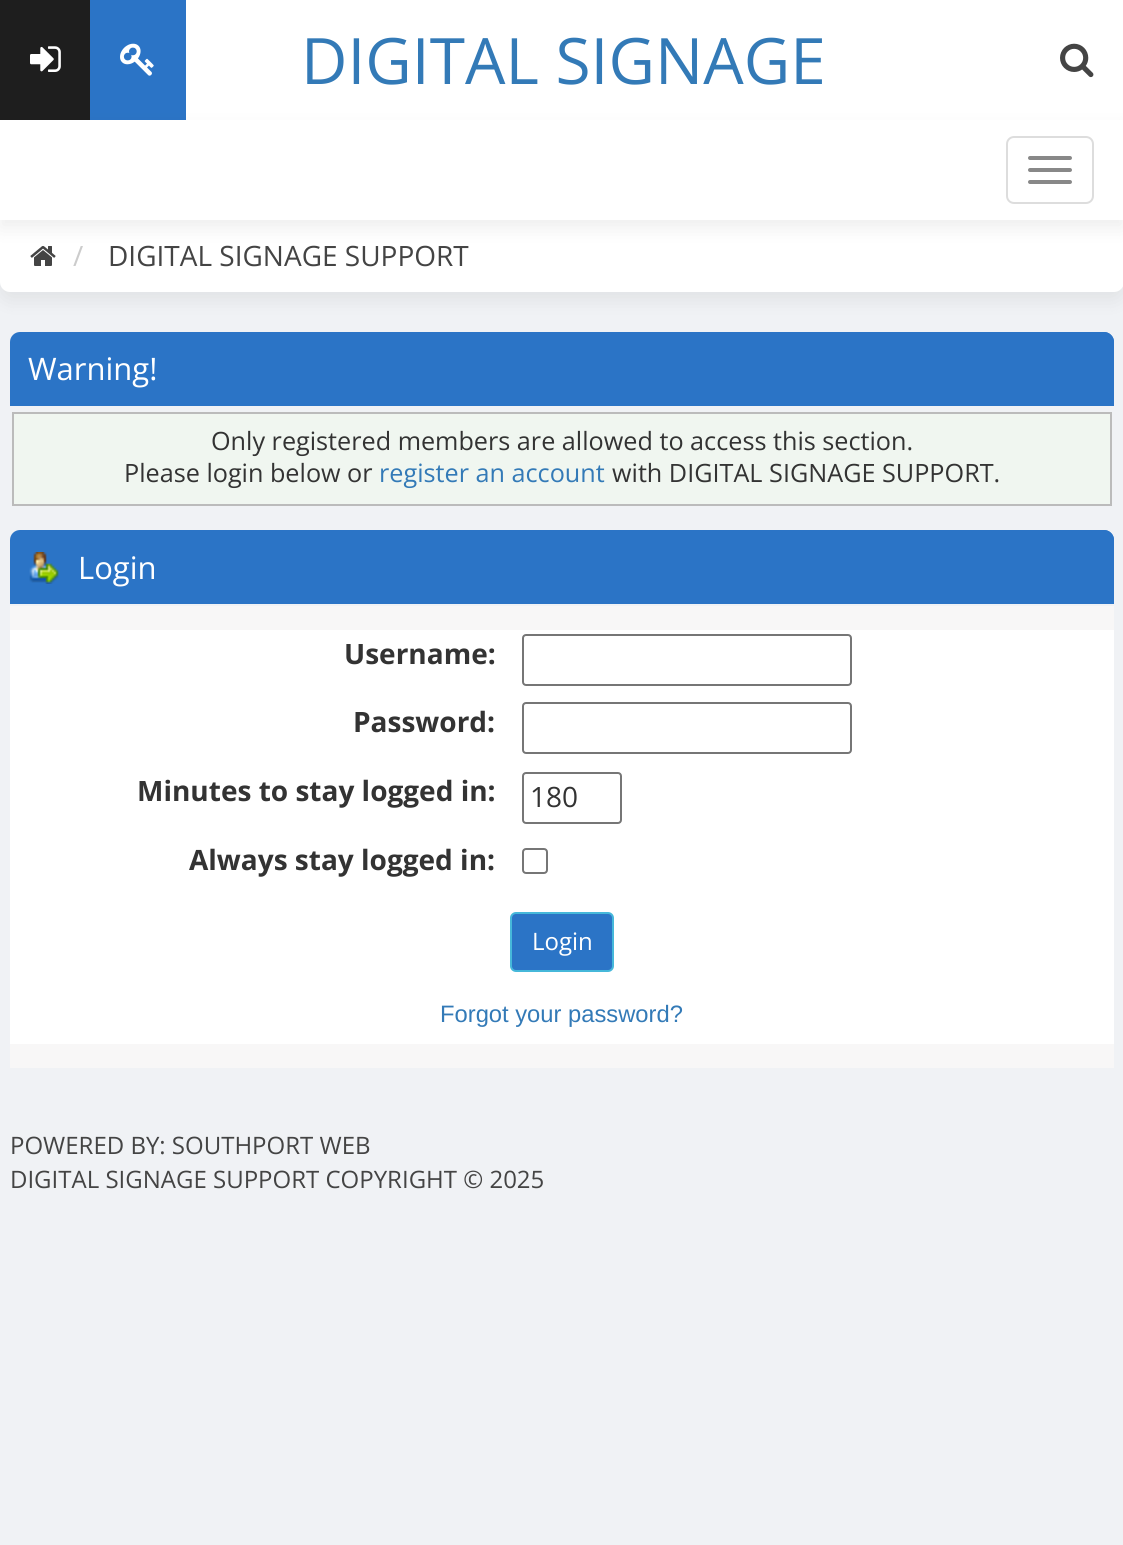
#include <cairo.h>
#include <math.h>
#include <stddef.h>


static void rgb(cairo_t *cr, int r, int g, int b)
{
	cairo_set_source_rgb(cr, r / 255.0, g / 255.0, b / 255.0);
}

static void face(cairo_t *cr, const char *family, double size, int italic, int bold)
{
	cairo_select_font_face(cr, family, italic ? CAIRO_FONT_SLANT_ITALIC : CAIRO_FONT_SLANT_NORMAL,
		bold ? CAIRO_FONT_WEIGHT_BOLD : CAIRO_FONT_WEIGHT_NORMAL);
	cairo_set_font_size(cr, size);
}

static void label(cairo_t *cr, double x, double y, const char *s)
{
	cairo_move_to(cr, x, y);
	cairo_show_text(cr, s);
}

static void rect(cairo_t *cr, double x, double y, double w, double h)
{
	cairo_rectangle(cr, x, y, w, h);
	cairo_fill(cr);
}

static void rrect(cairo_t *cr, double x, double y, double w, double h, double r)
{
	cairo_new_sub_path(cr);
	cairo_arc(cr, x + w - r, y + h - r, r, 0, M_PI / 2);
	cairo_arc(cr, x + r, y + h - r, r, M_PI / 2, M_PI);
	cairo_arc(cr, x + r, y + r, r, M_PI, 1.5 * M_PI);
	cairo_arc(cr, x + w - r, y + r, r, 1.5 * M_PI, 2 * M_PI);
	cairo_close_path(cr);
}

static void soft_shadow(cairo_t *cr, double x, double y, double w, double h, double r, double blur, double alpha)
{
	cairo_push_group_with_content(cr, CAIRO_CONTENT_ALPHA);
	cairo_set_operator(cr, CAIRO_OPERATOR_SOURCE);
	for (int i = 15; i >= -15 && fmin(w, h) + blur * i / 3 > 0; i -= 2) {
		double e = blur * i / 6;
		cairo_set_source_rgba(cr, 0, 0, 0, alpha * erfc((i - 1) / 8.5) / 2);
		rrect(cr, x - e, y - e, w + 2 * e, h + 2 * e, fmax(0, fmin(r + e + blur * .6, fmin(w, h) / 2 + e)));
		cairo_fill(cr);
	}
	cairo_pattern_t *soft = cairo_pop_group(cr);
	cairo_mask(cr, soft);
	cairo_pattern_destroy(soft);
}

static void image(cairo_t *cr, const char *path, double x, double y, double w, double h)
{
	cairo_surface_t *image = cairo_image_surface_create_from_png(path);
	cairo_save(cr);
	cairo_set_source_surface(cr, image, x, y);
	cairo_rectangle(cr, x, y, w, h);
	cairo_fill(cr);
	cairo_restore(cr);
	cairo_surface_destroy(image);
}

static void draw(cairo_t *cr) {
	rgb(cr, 240, 242, 245);
	cairo_paint(cr);
	rgb(cr, 255, 255, 255);
	rect(cr, 186, 0, 937, 120);
	rgb(cr, 30, 30, 30);
	rect(cr, 0, 0, 90, 120);
	image(cr, "image0.png", 30, 46, 31, 26);
	rgb(cr, 43, 116, 198);
	rect(cr, 90, 0, 96, 120);
	image(cr, "image1.png", 120, 43, 34, 33);
	face(cr, "Open Sans", 64, 0, 0);
	rgb(cr, 51, 122, 183);
	label(cr, 301, 84, "DIGITAL SIGNAGE");
	image(cr, "image2.png", 1060, 43, 34, 35);
	rgb(cr, 0, 0, 0);
	soft_shadow(cr, 0, 228, 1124, 72, 10, 10, 0.07);
	rgb(cr, 255, 255, 255);
	cairo_new_path(cr);
	cairo_move_to(cr, 0, 220);
	cairo_line_to(cr, 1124, 220);
	cairo_line_to(cr, 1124, 282);
	cairo_curve_to(cr, 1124, 287.5, 1119.5, 292, 1114, 292);
	cairo_line_to(cr, 10, 292);
	cairo_curve_to(cr, 4.5, 292, 0, 287.5, 0, 282);
	cairo_close_path(cr);
	cairo_fill(cr);
	image(cr, "image3.png", 30, 246, 26, 20);
	rgb(cr, 0, 0, 0);
	soft_shadow(cr, 0, 128, 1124, 100, 0, 10, 0.07);
	rgb(cr, 255, 255, 255);
	rect(cr, 0, 120, 1123, 100);
	rrect(cr, 1007, 137, 86, 66, 7);
	rgb(cr, 221, 221, 221);
	cairo_stroke(cr);
	rgb(cr, 136, 136, 136);
	rrect(cr, 1028, 156, 44, 4, 2);
	cairo_fill(cr);
	rrect(cr, 1028, 168, 44, 4, 2);
	cairo_fill(cr);
	rrect(cr, 1028, 180, 44, 4, 2);
	cairo_fill(cr);
	face(cr, "Open Sans", 28, 0, 0);
	rgb(cr, 204, 204, 204);
	label(cr, 73, 266, "/");
	rgb(cr, 68, 68, 68);
	label(cr, 108, 266, "DIGITAL SIGNAGE SUPPORT");
	rgb(cr, 43, 116, 198);
	cairo_new_path(cr);
	cairo_move_to(cr, 20, 332);
	cairo_line_to(cr, 1104, 332);
	cairo_curve_to(cr, 1109.5, 332, 1114, 336.5, 1114, 342);
	cairo_line_to(cr, 1114, 406);
	cairo_line_to(cr, 10, 406);
	cairo_line_to(cr, 10, 342);
	cairo_curve_to(cr, 10, 336.5, 14.5, 332, 20, 332);
	cairo_close_path(cr);
	cairo_fill(cr);
	cairo_new_path(cr);
	cairo_move_to(cr, 28, 332);
	cairo_line_to(cr, 1104, 332);
	cairo_curve_to(cr, 1109.5, 332, 1114, 336.5, 1114, 342);
	cairo_line_to(cr, 1114, 406);
	cairo_line_to(cr, 28, 406);
	cairo_close_path(cr);
	cairo_fill(cr);
	face(cr, "Open Sans", 31, 0, 0);
	rgb(cr, 255, 255, 255);
	label(cr, 28, 380, "Warning!");
	rgb(cr, 240, 246, 240);
	cairo_rectangle(cr, 13, 413, 1098, 92);
	cairo_fill_preserve(cr);
	rgb(cr, 187, 187, 187);
	cairo_stroke(cr);
	face(cr, "Open Sans", 25.2, 0, 0);
	rgb(cr, 51, 51, 51);
	label(cr, 211, 450, "Only registered members are allowed to access this section.");
	label(cr, 124, 482, "Please login below or");
	rgb(cr, 51, 122, 183);
	label(cr, 379, 482, "register an account");
	rgb(cr, 51, 51, 51);
	label(cr, 612, 482, "with DIGITAL SIGNAGE SUPPORT.");
	rgb(cr, 43, 116, 198);
	cairo_new_path(cr);
	cairo_move_to(cr, 20, 530);
	cairo_line_to(cr, 1104, 530);
	cairo_curve_to(cr, 1109.5, 530, 1114, 534.5, 1114, 540);
	cairo_line_to(cr, 1114, 604);
	cairo_line_to(cr, 10, 604);
	cairo_line_to(cr, 10, 540);
	cairo_curve_to(cr, 10, 534.5, 14.5, 530, 20, 530);
	cairo_close_path(cr);
	cairo_fill(cr);
	cairo_new_path(cr);
	cairo_move_to(cr, 28, 530);
	cairo_line_to(cr, 1104, 530);
	cairo_curve_to(cr, 1109.5, 530, 1114, 534.5, 1114, 540);
	cairo_line_to(cr, 1114, 604);
	cairo_line_to(cr, 28, 604);
	cairo_close_path(cr);
	cairo_fill(cr);
	image(cr, "image4.png", 29, 552, 30, 32);
	face(cr, "Open Sans", 31, 0, 0);
	rgb(cr, 255, 255, 255);
	label(cr, 78, 579, "Login");
	rgb(cr, 248, 247, 247);
	rect(cr, 10, 606, 1104, 24);
	rgb(cr, 255, 255, 255);
	rect(cr, 10, 630, 1104, 414);
	face(cr, "Open Sans", 28, 0, 1);
	rgb(cr, 51, 51, 51);
	label(cr, 344, 664, "Username:");
	rrect(cr, 523, 635, 328, 50, 3);
	rgb(cr, 118, 118, 118);
	cairo_stroke(cr);
	rgb(cr, 51, 51, 51);
	label(cr, 353, 732, "Password:");
	rrect(cr, 523, 703, 328, 50, 3);
	rgb(cr, 118, 118, 118);
	cairo_stroke(cr);
	rgb(cr, 51, 51, 51);
	label(cr, 137, 801, "Minutes to stay logged in:");
	rrect(cr, 523, 773, 98, 50, 3);
	rgb(cr, 118, 118, 118);
	cairo_stroke(cr);
	face(cr, "Open Sans", 28, 0, 0);
	rgb(cr, 51, 51, 51);
	label(cr, 530, 807, "180");
	face(cr, "Open Sans", 28, 0, 1);
	label(cr, 189, 870, "Always stay logged in:");
	rrect(cr, 523, 849, 24, 24, 3);
	rgb(cr, 118, 118, 118);
	cairo_stroke(cr);
	rgb(cr, 43, 116, 198);
	rrect(cr, 511, 913, 102, 58, 5);
	cairo_fill_preserve(cr);
	rgb(cr, 70, 184, 218);
	cairo_stroke(cr);
	face(cr, "Open Sans", 24, 0, 0);
	rgb(cr, 255, 255, 255);
	label(cr, 532, 950, "Login");
	face(cr, "Liberation Sans", 23.75, 0, 0);
	rgb(cr, 51, 122, 183);
	label(cr, 440, 1022, "Forgot your password?");
	rgb(cr, 248, 247, 247);
	rect(cr, 10, 1044, 1104, 24);
	face(cr, "Open Sans", 24, 0, 0);
	rgb(cr, 68, 68, 68);
	label(cr, 10, 1154, "POWERED BY: SOUTHPORT WEB");
	label(cr, 10, 1188, "DIGITAL SIGNAGE SUPPORT COPYRIGHT © 2025");
}

int main(void) {
	cairo_surface_t *surface = cairo_image_surface_create(CAIRO_FORMAT_RGB24, 1123, 1545);
	cairo_t *cr = cairo_create(surface);
	cairo_font_options_t *options = cairo_font_options_create();
	cairo_font_options_set_hint_metrics(options, CAIRO_HINT_METRICS_OFF);
	cairo_font_options_set_hint_style(options, CAIRO_HINT_STYLE_NONE);
	cairo_set_font_options(cr, options);
	cairo_set_miter_limit(cr, 4);
	draw(cr);
	cairo_surface_write_to_png(surface, "render.png");
	cairo_font_options_destroy(options);
	cairo_destroy(cr);
	cairo_surface_destroy(surface);
	return 0;
}
